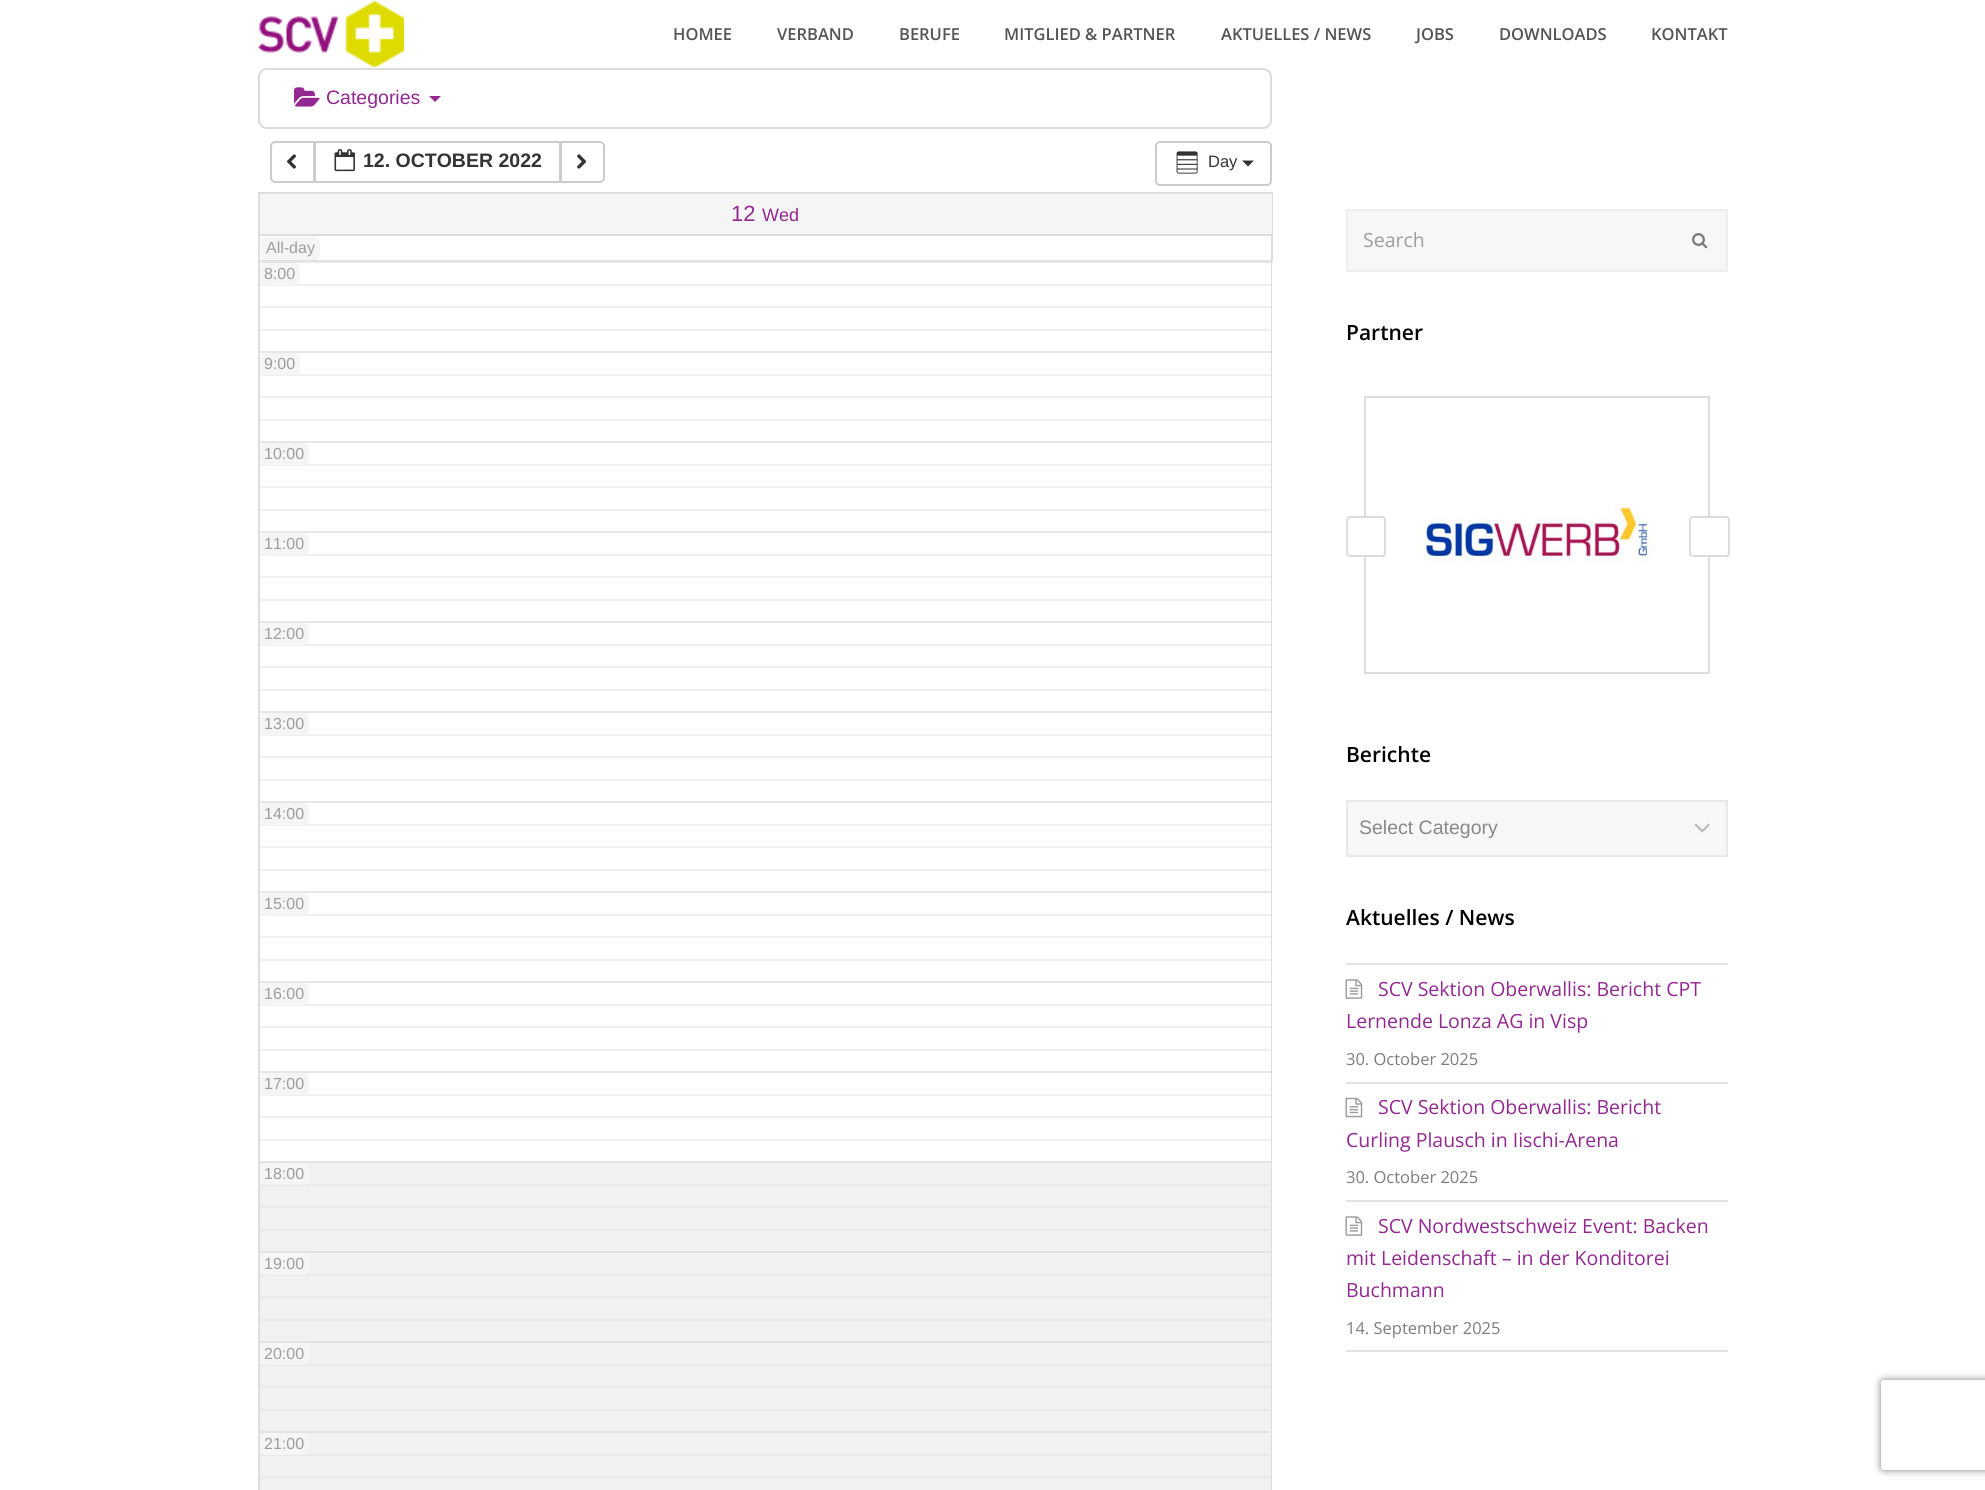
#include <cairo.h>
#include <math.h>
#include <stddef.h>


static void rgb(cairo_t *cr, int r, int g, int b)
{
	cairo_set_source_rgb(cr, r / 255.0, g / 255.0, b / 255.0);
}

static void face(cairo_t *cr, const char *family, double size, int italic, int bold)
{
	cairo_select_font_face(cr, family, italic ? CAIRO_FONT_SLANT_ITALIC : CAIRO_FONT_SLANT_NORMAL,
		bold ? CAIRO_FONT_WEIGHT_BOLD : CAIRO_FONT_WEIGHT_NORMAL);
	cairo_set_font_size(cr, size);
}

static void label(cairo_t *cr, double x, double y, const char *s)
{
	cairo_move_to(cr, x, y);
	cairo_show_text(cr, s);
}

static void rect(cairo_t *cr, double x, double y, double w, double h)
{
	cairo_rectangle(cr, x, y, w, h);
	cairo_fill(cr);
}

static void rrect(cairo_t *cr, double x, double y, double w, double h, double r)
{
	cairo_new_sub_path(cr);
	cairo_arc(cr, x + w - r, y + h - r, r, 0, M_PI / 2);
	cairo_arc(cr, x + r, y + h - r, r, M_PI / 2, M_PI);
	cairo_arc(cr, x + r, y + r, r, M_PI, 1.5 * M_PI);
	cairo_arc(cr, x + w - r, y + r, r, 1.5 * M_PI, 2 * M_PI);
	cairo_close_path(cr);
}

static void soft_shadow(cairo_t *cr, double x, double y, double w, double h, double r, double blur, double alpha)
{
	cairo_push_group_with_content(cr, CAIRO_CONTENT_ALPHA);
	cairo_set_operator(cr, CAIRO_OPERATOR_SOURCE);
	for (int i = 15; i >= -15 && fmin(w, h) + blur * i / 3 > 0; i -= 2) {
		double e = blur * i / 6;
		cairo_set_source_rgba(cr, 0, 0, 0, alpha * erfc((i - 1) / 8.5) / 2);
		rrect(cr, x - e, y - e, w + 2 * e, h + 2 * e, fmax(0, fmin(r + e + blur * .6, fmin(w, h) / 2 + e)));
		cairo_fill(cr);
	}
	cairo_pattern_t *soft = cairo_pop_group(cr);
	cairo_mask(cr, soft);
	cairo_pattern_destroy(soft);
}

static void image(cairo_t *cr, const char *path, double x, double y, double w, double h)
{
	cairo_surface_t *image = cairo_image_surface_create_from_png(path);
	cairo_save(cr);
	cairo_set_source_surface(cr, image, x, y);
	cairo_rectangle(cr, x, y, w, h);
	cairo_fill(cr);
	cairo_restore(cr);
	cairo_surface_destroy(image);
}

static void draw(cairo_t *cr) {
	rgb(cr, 255, 255, 255);
	cairo_paint(cr);
	image(cr, "image0.png", 258, 0, 146, 67);
	face(cr, "Open Sans SemiBold", 16.5, 0, 0);
	rgb(cr, 84, 84, 84);
	label(cr, 673, 40, "HOMEE");
	label(cr, 777, 40, "VERBAND");
	label(cr, 899, 40, "BERUFE");
	label(cr, 1004, 40, "MITGLIED & PARTNER");
	label(cr, 1221, 40, "AKTUELLES / NEWS");
	label(cr, 1416, 40, "JOBS");
	label(cr, 1499, 40, "DOWNLOADS");
	label(cr, 1651, 40, "KONTAKT");
	rrect(cr, 259, 69, 1012, 59, 8);
	rgb(cr, 219, 219, 219);
	cairo_stroke(cr);
	image(cr, "image1.png", 294, 87, 26, 20);
	face(cr, "Liberation Sans", 19.5, 0, 0);
	rgb(cr, 147, 40, 145);
	label(cr, 326, 104, "Categories");
	cairo_new_path(cr);
	cairo_move_to(cr, 429, 96);
	cairo_line_to(cr, 441, 96);
	cairo_line_to(cr, 435, 102);
	cairo_close_path(cr);
	cairo_fill(cr);
	cairo_new_path(cr);
	cairo_move_to(cr, 275, 142);
	cairo_line_to(cr, 314, 142);
	cairo_line_to(cr, 314, 182);
	cairo_line_to(cr, 275, 182);
	cairo_curve_to(cr, 273, 182, 271, 180, 271, 178);
	cairo_line_to(cr, 271, 146);
	cairo_curve_to(cr, 271, 144, 273, 142, 275, 142);
	cairo_close_path(cr);
	rgb(cr, 204, 204, 204);
	cairo_stroke(cr);
	image(cr, "image2.png", 287, 154, 9, 15);
	cairo_rectangle(cr, 315, 142, 245, 40);
	cairo_stroke(cr);
	image(cr, "image3.png", 334, 149, 21, 23);
	face(cr, "Liberation Sans", 19.5, 0, 1);
	rgb(cr, 51, 51, 51);
	label(cr, 363, 167, "12. OCTOBER 2022");
	rgb(cr, 255, 255, 255);
	cairo_new_path(cr);
	cairo_move_to(cr, 561, 142);
	cairo_line_to(cr, 600, 142);
	cairo_curve_to(cr, 602, 142, 604, 144, 604, 146);
	cairo_line_to(cr, 604, 178);
	cairo_curve_to(cr, 604, 180, 602, 182, 600, 182);
	cairo_line_to(cr, 561, 182);
	cairo_close_path(cr);
	cairo_fill_preserve(cr);
	rgb(cr, 204, 204, 204);
	cairo_stroke(cr);
	image(cr, "image4.png", 577, 154, 10, 15);
	rrect(cr, 1156, 142, 115, 43, 4);
	cairo_stroke(cr);
	image(cr, "image5.png", 1176, 151, 22, 23);
	face(cr, "Liberation Sans", 16.5, 0, 0);
	rgb(cr, 51, 51, 51);
	label(cr, 1208, 167, "Day");
	cairo_new_path(cr);
	cairo_move_to(cr, 1242, 160.5);
	cairo_line_to(cr, 1254, 160.5);
	cairo_line_to(cr, 1248, 166.5);
	cairo_close_path(cr);
	cairo_fill(cr);
	rgb(cr, 221, 221, 221);
	rect(cr, 258, 192, 1014, 2);
	rect(cr, 1271, 192, 2, 69);
	rect(cr, 258, 192, 2, 69);
	rgb(cr, 245, 245, 245);
	rect(cr, 260, 194, 1012, 40);
	face(cr, "Liberation Sans", 22, 0, 0);
	rgb(cr, 147, 40, 145);
	label(cr, 731, 221, "12");
	face(cr, "Liberation Sans", 18, 0, 0);
	label(cr, 762, 221, "Wed");
	rgb(cr, 221, 221, 221);
	rect(cr, 258, 234, 1014, 2);
	rect(cr, 258, 260, 1014, 1);
	rgb(cr, 245, 245, 245);
	rrect(cr, 261, 237, 59, 23, 5);
	cairo_fill(cr);
	face(cr, "Liberation Sans", 16, 0, 0);
	rgb(cr, 157, 157, 157);
	label(cr, 266, 253, "All-day");
	rgb(cr, 241, 241, 241);
	rect(cr, 260, 1433, 1011, 57);
	rgb(cr, 233, 233, 233);
	rect(cr, 258, 1476, 1014, 2);
	rect(cr, 258, 1454, 1014, 2);
	rgb(cr, 227, 227, 227);
	rect(cr, 258, 1431, 1014, 2);
	rgb(cr, 241, 241, 241);
	rect(cr, 260, 1343, 1011, 88);
	rgb(cr, 233, 233, 233);
	rect(cr, 258, 1409, 1014, 2);
	rect(cr, 258, 1386, 1014, 2);
	rect(cr, 258, 1364, 1014, 2);
	rgb(cr, 227, 227, 227);
	rect(cr, 258, 1341, 1014, 2);
	rgb(cr, 241, 241, 241);
	rect(cr, 260, 1253, 1011, 88);
	rgb(cr, 233, 233, 233);
	rect(cr, 258, 1319, 1014, 2);
	rect(cr, 258, 1296, 1014, 2);
	rect(cr, 258, 1274, 1014, 2);
	rgb(cr, 227, 227, 227);
	rect(cr, 258, 1251, 1014, 2);
	rgb(cr, 241, 241, 241);
	rect(cr, 260, 1163, 1011, 88);
	rgb(cr, 233, 233, 233);
	rect(cr, 258, 1229, 1014, 2);
	rect(cr, 258, 1206, 1014, 2);
	rect(cr, 258, 1184, 1014, 2);
	rgb(cr, 227, 227, 227);
	rect(cr, 258, 1161, 1014, 2);
	rgb(cr, 241, 241, 241);
	rect(cr, 258, 1139, 1014, 2);
	rect(cr, 258, 1116, 1014, 2);
	rect(cr, 258, 1094, 1014, 2);
	rgb(cr, 231, 231, 231);
	rect(cr, 258, 1071, 1014, 2);
	rgb(cr, 241, 241, 241);
	rect(cr, 258, 1049, 1014, 2);
	rect(cr, 258, 1026, 1014, 2);
	rect(cr, 258, 1004, 1014, 2);
	rgb(cr, 231, 231, 231);
	rect(cr, 258, 981, 1014, 2);
	rgb(cr, 241, 241, 241);
	rect(cr, 258, 959, 1014, 2);
	rect(cr, 258, 936, 1014, 2);
	rect(cr, 258, 914, 1014, 2);
	rgb(cr, 231, 231, 231);
	rect(cr, 258, 891, 1014, 2);
	rgb(cr, 241, 241, 241);
	rect(cr, 258, 869, 1014, 2);
	rect(cr, 258, 846, 1014, 2);
	rect(cr, 258, 824, 1014, 2);
	rgb(cr, 231, 231, 231);
	rect(cr, 258, 801, 1014, 2);
	rgb(cr, 241, 241, 241);
	rect(cr, 258, 779, 1014, 2);
	rect(cr, 258, 756, 1014, 2);
	rect(cr, 258, 734, 1014, 2);
	rgb(cr, 231, 231, 231);
	rect(cr, 258, 711, 1014, 2);
	rgb(cr, 241, 241, 241);
	rect(cr, 258, 689, 1014, 2);
	rect(cr, 258, 666, 1014, 2);
	rect(cr, 258, 644, 1014, 2);
	rgb(cr, 231, 231, 231);
	rect(cr, 258, 621, 1014, 2);
	rgb(cr, 241, 241, 241);
	rect(cr, 258, 599, 1014, 2);
	rect(cr, 258, 576, 1014, 2);
	rect(cr, 258, 554, 1014, 2);
	rgb(cr, 231, 231, 231);
	rect(cr, 258, 531, 1014, 2);
	rgb(cr, 241, 241, 241);
	rect(cr, 258, 509, 1014, 2);
	rect(cr, 258, 486, 1014, 2);
	rect(cr, 258, 464, 1014, 2);
	rgb(cr, 231, 231, 231);
	rect(cr, 258, 441, 1014, 2);
	rgb(cr, 241, 241, 241);
	rect(cr, 258, 419, 1014, 2);
	rect(cr, 258, 396, 1014, 2);
	rect(cr, 258, 374, 1014, 2);
	rgb(cr, 231, 231, 231);
	rect(cr, 258, 351, 1014, 2);
	rgb(cr, 241, 241, 241);
	rect(cr, 258, 329, 1014, 2);
	rect(cr, 258, 306, 1014, 2);
	rect(cr, 258, 284, 1014, 2);
	rgb(cr, 231, 231, 231);
	rect(cr, 258, 261, 1014, 2);
	rgb(cr, 221, 221, 221);
	rect(cr, 1271, 261, 1, 900);
	rect(cr, 1271, 1161, 1, 329);
	rect(cr, 258, 261, 2, 900);
	rect(cr, 258, 1161, 2, 329);
	rgb(cr, 245, 245, 245);
	rrect(cr, 260, 263, 40, 22, 5);
	cairo_fill(cr);
	rgb(cr, 157, 157, 157);
	label(cr, 264, 279, "8:00");
	rgb(cr, 245, 245, 245);
	rrect(cr, 260, 353, 40, 22, 5);
	cairo_fill(cr);
	rgb(cr, 157, 157, 157);
	label(cr, 264, 369, "9:00");
	rgb(cr, 245, 245, 245);
	rrect(cr, 260, 443, 49, 22, 5);
	cairo_fill(cr);
	rgb(cr, 157, 157, 157);
	label(cr, 264, 459, "10:00");
	rgb(cr, 245, 245, 245);
	rrect(cr, 260, 533, 49, 22, 5);
	cairo_fill(cr);
	rgb(cr, 157, 157, 157);
	label(cr, 264, 549, "11:00");
	rgb(cr, 245, 245, 245);
	rrect(cr, 260, 623, 49, 22, 5);
	cairo_fill(cr);
	rgb(cr, 157, 157, 157);
	label(cr, 264, 639, "12:00");
	rgb(cr, 245, 245, 245);
	rrect(cr, 260, 713, 49, 22, 5);
	cairo_fill(cr);
	rgb(cr, 157, 157, 157);
	label(cr, 264, 729, "13:00");
	rgb(cr, 245, 245, 245);
	rrect(cr, 260, 803, 49, 22, 5);
	cairo_fill(cr);
	rgb(cr, 157, 157, 157);
	label(cr, 264, 819, "14:00");
	rgb(cr, 245, 245, 245);
	rrect(cr, 260, 893, 49, 22, 5);
	cairo_fill(cr);
	rgb(cr, 157, 157, 157);
	label(cr, 264, 909, "15:00");
	rgb(cr, 245, 245, 245);
	rrect(cr, 260, 983, 49, 22, 5);
	cairo_fill(cr);
	rgb(cr, 157, 157, 157);
	label(cr, 264, 999, "16:00");
	rgb(cr, 245, 245, 245);
	rrect(cr, 260, 1073, 49, 22, 5);
	cairo_fill(cr);
	rgb(cr, 157, 157, 157);
	label(cr, 264, 1089, "17:00");
	rgb(cr, 245, 245, 245);
	rrect(cr, 260, 1163, 49, 22, 5);
	cairo_fill(cr);
	rgb(cr, 157, 157, 157);
	label(cr, 264, 1179, "18:00");
	rgb(cr, 245, 245, 245);
	rrect(cr, 260, 1253, 49, 22, 5);
	cairo_fill(cr);
	rgb(cr, 157, 157, 157);
	label(cr, 264, 1269, "19:00");
	rgb(cr, 245, 245, 245);
	rrect(cr, 260, 1343, 49, 22, 5);
	cairo_fill(cr);
	rgb(cr, 157, 157, 157);
	label(cr, 264, 1359, "20:00");
	rgb(cr, 245, 245, 245);
	rrect(cr, 260, 1433, 49, 22, 5);
	cairo_fill(cr);
	rgb(cr, 157, 157, 157);
	label(cr, 264, 1449, "21:00");
	rgb(cr, 247, 247, 247);
	cairo_rectangle(cr, 1347, 210, 380, 61);
	cairo_fill_preserve(cr);
	rgb(cr, 238, 238, 238);
	cairo_stroke(cr);
	face(cr, "Open Sans", 19.5, 0, 0);
	rgb(cr, 157, 157, 157);
	label(cr, 1363, 247, "Search");
	image(cr, "image6.png", 1692, 233, 16, 16);
	face(cr, "Open Sans SemiBold", 21, 0, 0);
	rgb(cr, 0, 0, 0);
	label(cr, 1346, 340, "Partner");
	cairo_rectangle(cr, 1365, 397, 344, 276);
	rgb(cr, 220, 220, 220);
	cairo_stroke(cr);
	image(cr, "image7.png", 1417, 504, 237, 61);
	rgb(cr, 255, 255, 255);
	rrect(cr, 1347, 517, 38, 39, 3);
	cairo_fill_preserve(cr);
	rgb(cr, 220, 220, 220);
	cairo_stroke(cr);
	rgb(cr, 255, 255, 255);
	rrect(cr, 1690, 517, 39, 39, 3);
	cairo_fill_preserve(cr);
	rgb(cr, 220, 220, 220);
	cairo_stroke(cr);
	rgb(cr, 0, 0, 0);
	label(cr, 1346, 762, "Berichte");
	rgb(cr, 247, 247, 247);
	cairo_rectangle(cr, 1347, 801, 380, 55);
	cairo_fill_preserve(cr);
	rgb(cr, 232, 232, 232);
	cairo_stroke(cr);
	face(cr, "Liberation Sans", 19.5, 0, 0);
	rgb(cr, 136, 136, 136);
	label(cr, 1359, 834, "Select Category");
	image(cr, "image8.png", 1694, 823, 16, 10);
	face(cr, "Open Sans SemiBold", 21, 0, 0);
	rgb(cr, 0, 0, 0);
	label(cr, 1346, 925, "Aktuelles / News");
	rgb(cr, 226, 226, 226);
	rect(cr, 1346, 963, 382, 2);
	rect(cr, 1346, 1082, 382, 2);
	image(cr, "image9.png", 1345, 979, 18, 20);
	face(cr, "Open Sans", 19.5, 0, 0);
	rgb(cr, 147, 40, 145);
	label(cr, 1378, 996, "SCV Sektion Oberwallis: Bericht CPT");
	label(cr, 1346, 1028, "Lernende Lonza AG in Visp");
	face(cr, "Open Sans", 16.5, 0, 0);
	rgb(cr, 125, 125, 125);
	label(cr, 1346, 1065, "30. October 2025");
	rgb(cr, 226, 226, 226);
	rect(cr, 1346, 1200, 382, 2);
	image(cr, "image10.png", 1345, 1097, 18, 21);
	face(cr, "Open Sans", 19.5, 0, 0);
	rgb(cr, 147, 40, 145);
	label(cr, 1378, 1114, "SCV Sektion Oberwallis: Bericht");
	label(cr, 1346, 1147, "Curling Plausch in Iischi-Arena");
	face(cr, "Open Sans", 16.5, 0, 0);
	rgb(cr, 125, 125, 125);
	label(cr, 1346, 1183, "30. October 2025");
	rgb(cr, 226, 226, 226);
	rect(cr, 1346, 1350, 382, 2);
	image(cr, "image9.png", 1345, 1216, 18, 20);
	face(cr, "Open Sans", 19.5, 0, 0);
	rgb(cr, 147, 40, 145);
	label(cr, 1378, 1233, "SCV Nordwestschweiz Event: Backen");
	label(cr, 1346, 1265, "mit Leidenschaft – in der Konditorei");
	label(cr, 1346, 1297, "Buchmann");
	face(cr, "Open Sans", 16.5, 0, 0);
	rgb(cr, 125, 125, 125);
	label(cr, 1346, 1334, "14. September 2025");
	cairo_save(cr);
	cairo_set_fill_rule(cr, CAIRO_FILL_RULE_EVEN_ODD);
	cairo_new_path(cr);
	cairo_move_to(cr, 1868, 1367);
	cairo_line_to(cr, 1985, 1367);
	cairo_line_to(cr, 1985, 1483);
	cairo_line_to(cr, 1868, 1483);
	cairo_close_path(cr);
	cairo_move_to(cr, 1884, 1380);
	cairo_line_to(cr, 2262, 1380);
	cairo_curve_to(cr, 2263.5, 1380, 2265, 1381.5, 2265, 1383);
	cairo_line_to(cr, 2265, 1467);
	cairo_curve_to(cr, 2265, 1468.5, 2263.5, 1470, 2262, 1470);
	cairo_line_to(cr, 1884, 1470);
	cairo_curve_to(cr, 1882.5, 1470, 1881, 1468.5, 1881, 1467);
	cairo_line_to(cr, 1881, 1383);
	cairo_curve_to(cr, 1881, 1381.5, 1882.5, 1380, 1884, 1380);
	cairo_close_path(cr);
	cairo_clip(cr);
	rgb(cr, 128, 128, 128);
	soft_shadow(cr, 1881, 1380, 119, 90, 3, 4, 1);
	cairo_restore(cr);
}

int main(void) {
	cairo_surface_t *surface = cairo_image_surface_create(CAIRO_FORMAT_RGB24, 1985, 1490);
	cairo_t *cr = cairo_create(surface);
	cairo_font_options_t *options = cairo_font_options_create();
	cairo_font_options_set_hint_metrics(options, CAIRO_HINT_METRICS_OFF);
	cairo_font_options_set_hint_style(options, CAIRO_HINT_STYLE_NONE);
	cairo_set_font_options(cr, options);
	cairo_set_miter_limit(cr, 4);
	draw(cr);
	cairo_surface_write_to_png(surface, "render.png");
	cairo_font_options_destroy(options);
	cairo_destroy(cr);
	cairo_surface_destroy(surface);
	return 0;
}
